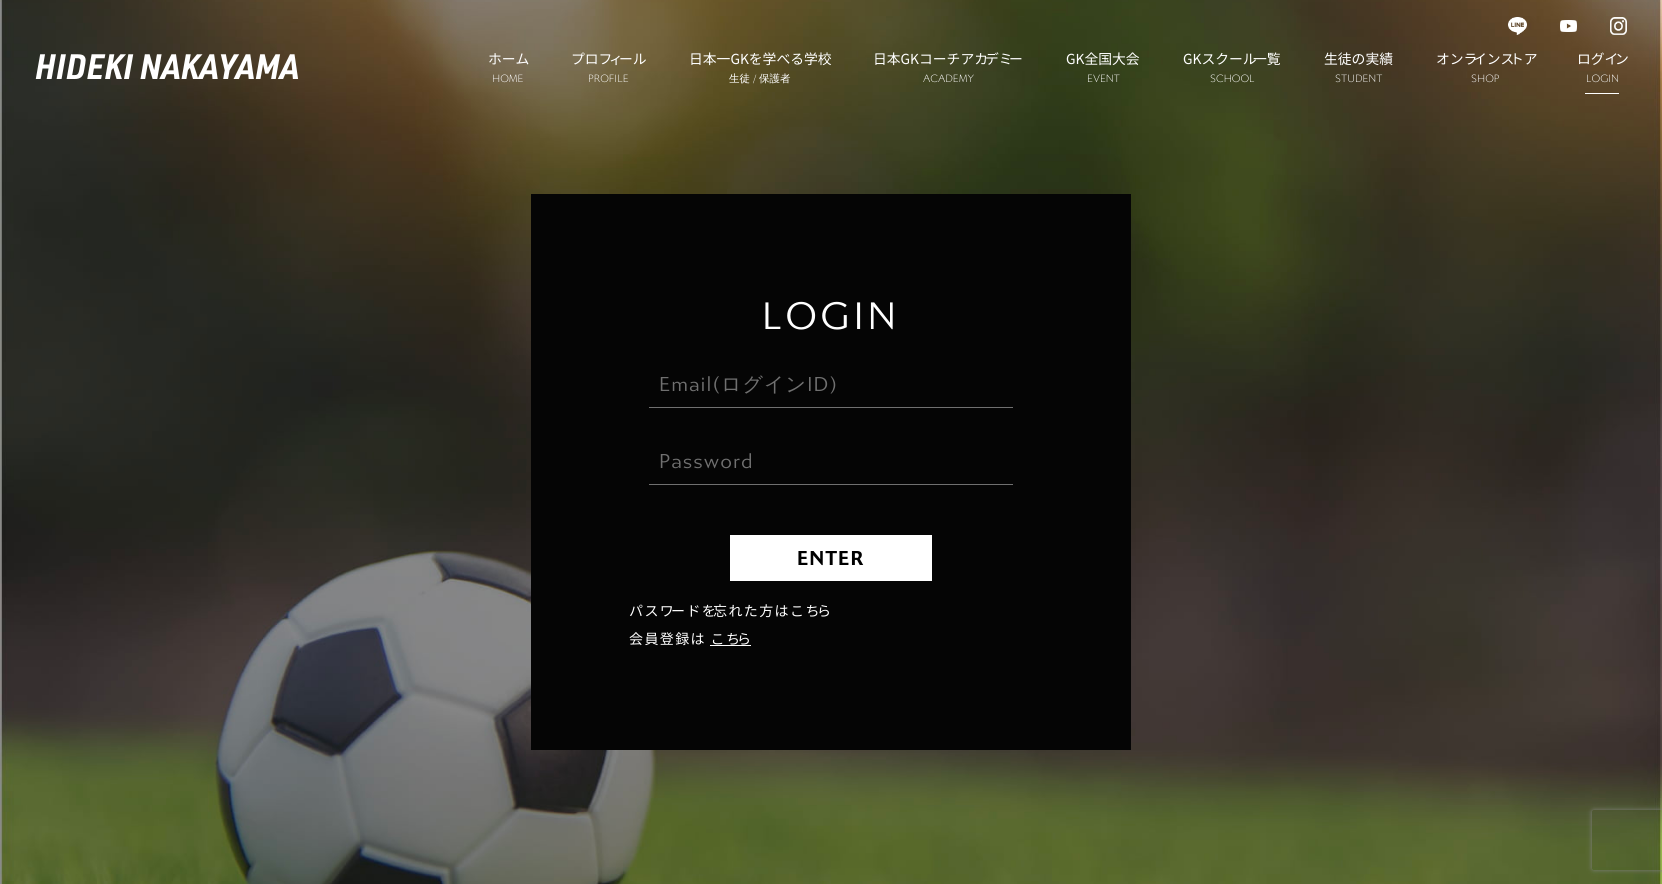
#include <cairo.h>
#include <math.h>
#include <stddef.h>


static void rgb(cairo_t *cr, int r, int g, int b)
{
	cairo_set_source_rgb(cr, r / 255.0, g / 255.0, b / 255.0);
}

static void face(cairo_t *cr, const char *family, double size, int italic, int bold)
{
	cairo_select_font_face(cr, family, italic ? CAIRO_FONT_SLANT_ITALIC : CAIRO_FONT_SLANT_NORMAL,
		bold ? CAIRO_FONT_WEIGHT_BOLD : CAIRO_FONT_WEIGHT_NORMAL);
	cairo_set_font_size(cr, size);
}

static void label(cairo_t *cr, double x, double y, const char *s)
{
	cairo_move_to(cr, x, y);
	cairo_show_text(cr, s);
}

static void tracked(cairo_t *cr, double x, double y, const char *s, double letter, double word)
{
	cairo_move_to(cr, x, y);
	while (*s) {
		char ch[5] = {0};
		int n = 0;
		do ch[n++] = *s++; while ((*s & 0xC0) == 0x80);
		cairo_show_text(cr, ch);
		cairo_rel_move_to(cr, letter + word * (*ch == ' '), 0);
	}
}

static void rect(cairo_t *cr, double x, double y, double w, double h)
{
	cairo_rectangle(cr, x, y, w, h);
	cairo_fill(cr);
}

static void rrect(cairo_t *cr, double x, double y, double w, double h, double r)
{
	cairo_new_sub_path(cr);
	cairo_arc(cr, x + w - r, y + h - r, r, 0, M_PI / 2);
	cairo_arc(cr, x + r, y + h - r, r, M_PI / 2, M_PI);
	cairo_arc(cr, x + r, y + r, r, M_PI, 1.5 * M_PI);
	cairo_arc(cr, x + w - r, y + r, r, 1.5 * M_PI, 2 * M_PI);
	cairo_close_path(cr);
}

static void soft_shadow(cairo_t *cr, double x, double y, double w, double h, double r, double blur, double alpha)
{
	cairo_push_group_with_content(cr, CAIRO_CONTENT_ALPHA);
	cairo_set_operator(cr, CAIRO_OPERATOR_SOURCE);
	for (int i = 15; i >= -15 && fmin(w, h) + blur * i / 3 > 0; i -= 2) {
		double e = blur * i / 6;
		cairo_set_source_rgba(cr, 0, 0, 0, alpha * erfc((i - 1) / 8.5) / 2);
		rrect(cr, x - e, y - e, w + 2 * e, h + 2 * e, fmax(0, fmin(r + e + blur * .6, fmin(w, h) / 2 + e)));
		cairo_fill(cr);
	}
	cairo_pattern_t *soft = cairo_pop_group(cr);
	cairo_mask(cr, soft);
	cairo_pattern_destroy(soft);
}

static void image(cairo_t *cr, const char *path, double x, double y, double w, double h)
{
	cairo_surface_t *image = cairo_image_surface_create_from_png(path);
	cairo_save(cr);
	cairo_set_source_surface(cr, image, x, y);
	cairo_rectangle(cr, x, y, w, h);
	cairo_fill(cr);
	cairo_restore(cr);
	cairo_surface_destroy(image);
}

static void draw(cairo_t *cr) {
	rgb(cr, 255, 255, 255);
	cairo_paint(cr);
	image(cr, "image4.png", 0, 0, 1662, 884);
	image(cr, "image0.png", 1508, 17, 19, 18);
	image(cr, "image1.png", 1560, 20, 17, 12);
	image(cr, "image2.png", 1610, 17, 17, 18);
	image(cr, "image3.png", 35, 54, 264, 25);
	face(cr, "Noto Sans JP", 13.8, 0, 0);
	rgb(cr, 255, 255, 255);
	label(cr, 488, 64, "ホーム");
	face(cr, "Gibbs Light", 10.5, 0, 0);
	label(cr, 492, 82, "HOME");
	face(cr, "Noto Sans JP", 13.8, 0, 0);
	label(cr, 571, 64, "プロフ");
	label(cr, 609, 64, "ィ");
	label(cr, 619, 64, "ール");
	face(cr, "Gibbs Light", 10.5, 0, 0);
	label(cr, 588, 82, "PROFILE");
	face(cr, "Noto Sans JP", 13.8, 0, 0);
	label(cr, 689, 64, "日本一GKを学べる学校");
	face(cr, "WenQuanYi Zen Hei Medium", 10.5, 0, 0);
	label(cr, 729, 82, "生徒");
	face(cr, "Gibbs Light", 10.5, 0, 0);
	label(cr, 753, 82, "/");
	face(cr, "WenQuanYi Zen Hei Medium", 10.5, 0, 0);
	label(cr, 759, 82, "保護者");
	face(cr, "Noto Sans JP", 13.8, 0, 0);
	label(cr, 873, 64, "日本GKコーチアカ");
	label(cr, 985, 64, "デミ");
	label(cr, 1009, 64, "ー");
	face(cr, "Gibbs Light", 10.5, 0, 0);
	label(cr, 923, 82, "ACADEMY");
	face(cr, "Noto Sans JP", 13.8, 0, 0);
	label(cr, 1066, 64, "GK全国大会");
	face(cr, "Gibbs Light", 10.5, 0, 0);
	label(cr, 1087, 82, "EVENT");
	face(cr, "Noto Sans JP", 13.8, 0, 0);
	label(cr, 1183, 64, "GKスクール");
	label(cr, 1253, 64, "一覧");
	face(cr, "Gibbs Light", 10.5, 0, 0);
	label(cr, 1210, 82, "SCHOOL");
	face(cr, "Noto Sans JP", 13.8, 0, 0);
	label(cr, 1324, 64, "生徒の実績");
	face(cr, "Gibbs Light", 10.5, 0, 0);
	label(cr, 1335, 82, "STUDENT");
	face(cr, "Noto Sans JP", 13.8, 0, 0);
	label(cr, 1436, 64, "オンラ");
	label(cr, 1473, 64, "インス");
	label(cr, 1510, 64, "トア");
	face(cr, "Gibbs Light", 10.5, 0, 0);
	label(cr, 1471, 82, "SHOP");
	face(cr, "Noto Sans JP", 13.8, 0, 0);
	label(cr, 1577, 64, "ログイ");
	label(cr, 1615, 64, "ン");
	face(cr, "Gibbs Light", 10.5, 0, 0);
	label(cr, 1586, 82, "LOGIN");
	rect(cr, 1585, 93, 34, 1);
	rgb(cr, 5, 5, 5);
	rect(cr, 531, 194, 600, 556);
	face(cr, "Gibbs", 38, 0, 0);
	rgb(cr, 255, 255, 255);
	tracked(cr, 762, 329, "LOGIN", 3.75, 0);
	rgb(cr, 112, 112, 112);
	rect(cr, 649, 407, 364, 1);
	face(cr, "Gibbs", 20, 0, 0);
	tracked(cr, 659, 391, "Email(", 1, 0);
	face(cr, "WenQuanYi Zen Hei Medium", 20, 0, 0);
	tracked(cr, 721, 391, "ログイン", 1, 0);
	face(cr, "Gibbs", 20, 0, 0);
	tracked(cr, 807, 391, "ID)", 1, 0);
	rect(cr, 649, 484, 364, 1);
	tracked(cr, 659, 468, "Password", 1, 0);
	rgb(cr, 255, 255, 255);
	rect(cr, 730, 535, 202, 46);
	face(cr, "Gibbs", 20, 0, 1);
	rgb(cr, 0, 0, 0);
	tracked(cr, 797, 565, "ENTER", 1, 0);
	face(cr, "Noto Sans JP", 14, 0, 0);
	rgb(cr, 255, 255, 255);
	tracked(cr, 629, 616, "パスワ", 1.4, 0);
	tracked(cr, 671, 616, "ードを", 1.4, 0);
	tracked(cr, 713, 616, "忘れた方はこち", 1.4, 0);
	tracked(cr, 817, 616, "ら", 1.4, 0);
	tracked(cr, 629, 644, "会員登録は こち", 1.4, 0);
	tracked(cr, 737, 644, "ら", 1.4, 0);
	rect(cr, 710, 645, 41, 1);
	cairo_save(cr);
	cairo_set_fill_rule(cr, CAIRO_FILL_RULE_EVEN_ODD);
	cairo_new_path(cr);
	cairo_move_to(cr, 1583, 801);
	cairo_line_to(cr, 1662, 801);
	cairo_line_to(cr, 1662, 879);
	cairo_line_to(cr, 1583, 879);
	cairo_close_path(cr);
	cairo_move_to(cr, 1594, 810);
	cairo_line_to(cr, 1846, 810);
	cairo_curve_to(cr, 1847, 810, 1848, 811, 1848, 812);
	cairo_line_to(cr, 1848, 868);
	cairo_curve_to(cr, 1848, 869, 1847, 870, 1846, 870);
	cairo_line_to(cr, 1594, 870);
	cairo_curve_to(cr, 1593, 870, 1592, 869, 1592, 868);
	cairo_line_to(cr, 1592, 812);
	cairo_curve_to(cr, 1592, 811, 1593, 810, 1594, 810);
	cairo_close_path(cr);
	cairo_clip(cr);
	rgb(cr, 128, 128, 128);
	soft_shadow(cr, 1592, 810, 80, 60, 2, 2.5, 1);
	cairo_restore(cr);
}

int main(void) {
	cairo_surface_t *surface = cairo_image_surface_create(CAIRO_FORMAT_RGB24, 1662, 884);
	cairo_t *cr = cairo_create(surface);
	cairo_font_options_t *options = cairo_font_options_create();
	cairo_font_options_set_hint_metrics(options, CAIRO_HINT_METRICS_OFF);
	cairo_font_options_set_hint_style(options, CAIRO_HINT_STYLE_NONE);
	cairo_set_font_options(cr, options);
	cairo_set_miter_limit(cr, 4);
	draw(cr);
	cairo_surface_write_to_png(surface, "render.png");
	cairo_font_options_destroy(options);
	cairo_destroy(cr);
	cairo_surface_destroy(surface);
	return 0;
}
